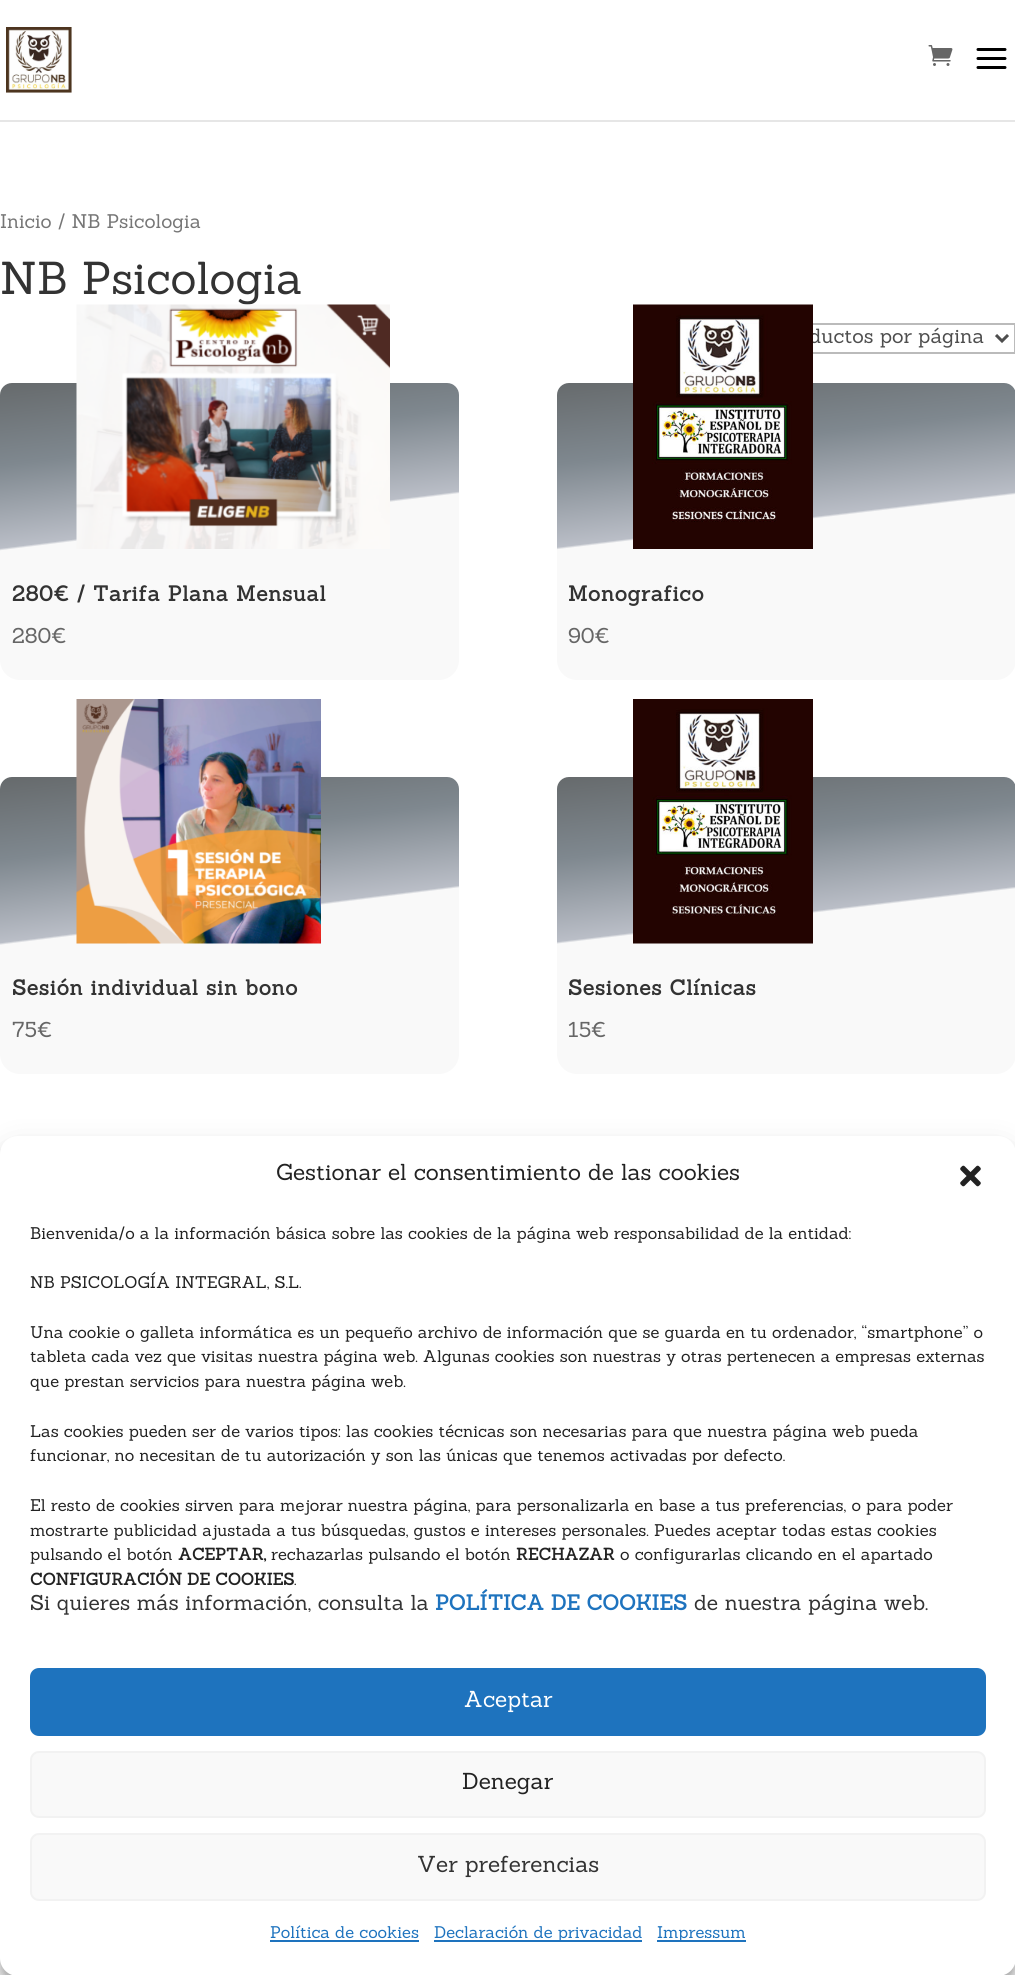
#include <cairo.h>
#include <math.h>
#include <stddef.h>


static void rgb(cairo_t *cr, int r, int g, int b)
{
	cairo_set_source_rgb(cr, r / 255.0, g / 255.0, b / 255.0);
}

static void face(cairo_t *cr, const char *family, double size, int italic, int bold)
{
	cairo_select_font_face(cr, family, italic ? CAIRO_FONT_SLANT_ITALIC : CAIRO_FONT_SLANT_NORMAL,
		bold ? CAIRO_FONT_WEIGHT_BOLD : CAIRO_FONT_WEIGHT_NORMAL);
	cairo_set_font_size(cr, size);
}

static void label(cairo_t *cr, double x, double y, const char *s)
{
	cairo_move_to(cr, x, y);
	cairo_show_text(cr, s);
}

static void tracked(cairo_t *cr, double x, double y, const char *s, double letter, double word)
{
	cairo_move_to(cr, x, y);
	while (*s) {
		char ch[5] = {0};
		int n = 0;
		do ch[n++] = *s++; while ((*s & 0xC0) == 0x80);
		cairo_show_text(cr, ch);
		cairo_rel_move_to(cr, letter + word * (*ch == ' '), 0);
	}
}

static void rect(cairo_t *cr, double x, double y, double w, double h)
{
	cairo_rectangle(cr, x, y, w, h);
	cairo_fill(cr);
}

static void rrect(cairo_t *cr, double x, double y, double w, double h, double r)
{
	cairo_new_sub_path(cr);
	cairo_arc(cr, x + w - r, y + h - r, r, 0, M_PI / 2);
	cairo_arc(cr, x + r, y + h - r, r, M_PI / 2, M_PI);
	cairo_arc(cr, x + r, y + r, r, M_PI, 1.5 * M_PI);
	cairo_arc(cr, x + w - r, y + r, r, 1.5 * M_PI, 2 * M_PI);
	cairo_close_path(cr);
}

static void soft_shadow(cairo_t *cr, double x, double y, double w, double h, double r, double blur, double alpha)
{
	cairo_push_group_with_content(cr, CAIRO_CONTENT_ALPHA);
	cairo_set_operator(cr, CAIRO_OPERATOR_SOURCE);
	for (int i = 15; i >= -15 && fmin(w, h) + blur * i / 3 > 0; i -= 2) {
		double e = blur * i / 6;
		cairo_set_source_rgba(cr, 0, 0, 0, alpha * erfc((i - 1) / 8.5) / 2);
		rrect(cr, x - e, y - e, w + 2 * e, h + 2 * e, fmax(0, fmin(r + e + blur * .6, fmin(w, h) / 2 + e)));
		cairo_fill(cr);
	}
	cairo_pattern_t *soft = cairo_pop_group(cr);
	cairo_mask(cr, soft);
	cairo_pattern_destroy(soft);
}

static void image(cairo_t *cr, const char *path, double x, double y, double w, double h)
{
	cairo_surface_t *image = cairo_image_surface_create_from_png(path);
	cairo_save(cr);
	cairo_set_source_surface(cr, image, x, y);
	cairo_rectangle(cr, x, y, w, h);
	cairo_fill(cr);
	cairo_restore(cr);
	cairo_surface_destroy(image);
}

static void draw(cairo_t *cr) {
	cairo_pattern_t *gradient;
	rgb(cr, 255, 255, 255);
	cairo_paint(cr);
	rgb(cr, 230, 230, 230);
	cairo_new_path(cr);
	cairo_move_to(cr, 0, 120);
	cairo_line_to(cr, 0, 122);
	cairo_line_to(cr, 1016, 122);
	cairo_line_to(cr, 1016, 2);
	cairo_line_to(cr, 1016, 120);
	cairo_close_path(cr);
	cairo_fill(cr);
	image(cr, "image0.png", 6, 27, 66, 66);
	image(cr, "image1.png", 928, 45, 25, 21);
	image(cr, "image2.png", 976, 48, 31, 21);
	face(cr, "Sanchez", 19.25, 0, 0);
	rgb(cr, 118, 118, 118);
	label(cr, 0, 228, "Inicio / NB Psicologia");
	face(cr, "Sanchez", 45, 0, 0);
	rgb(cr, 51, 51, 51);
	label(cr, 0, 294, "NB Psicologia");
	cairo_rectangle(cr, 739, 324, 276, 29);
	rgb(cr, 187, 187, 187);
	cairo_stroke(cr);
	cairo_new_path(cr);
	cairo_move_to(cr, 996, 335);
	cairo_line_to(cr, 1002, 341);
	cairo_line_to(cr, 1008, 335);
	rgb(cr, 78, 78, 78);
	cairo_set_line_width(cr, 3);
	cairo_stroke(cr);
	face(cr, "Sanchez", 20, 0, 0);
	label(cr, 809, 343, "ductos por página");
	rgb(cr, 249, 249, 249);
	rrect(cr, 0, 383, 459, 297, 20);
	cairo_fill(cr);
	gradient = cairo_pattern_create_linear(215, 356, 244, 589);
	cairo_pattern_add_color_stop_rgba(gradient, 0, 0.4, 0.416, 0.424, 1);
	cairo_pattern_add_color_stop_rgba(gradient, 0.35, 0.498, 0.533, 0.561, 1);
	cairo_pattern_add_color_stop_rgba(gradient, 0.7, 0.729, 0.745, 0.78, 1);
	cairo_pattern_add_color_stop_rgba(gradient, 0.71, 0.729, 0.745, 0.78, 0);
	cairo_set_source(cr, gradient);
	cairo_pattern_destroy(gradient);
	rrect(cr, 0, 383, 459, 180, 12);
	cairo_fill(cr);
	image(cr, "image3.png", 76, 304, 314, 245);
	face(cr, "Sanchez", 21, 0, 1);
	rgb(cr, 51, 51, 51);
	tracked(cr, 12, 601, "280€ / Tarifa Plana Mensual", 0.75, 0);
	face(cr, "Sanchez", 21, 0, 0);
	rgb(cr, 102, 102, 102);
	label(cr, 12, 643, "280€");
	rgb(cr, 249, 249, 249);
	rrect(cr, 557, 383, 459, 297, 20);
	cairo_fill(cr);
	gradient = cairo_pattern_create_linear(772, 356, 800, 589);
	cairo_pattern_add_color_stop_rgba(gradient, 0, 0.4, 0.416, 0.424, 1);
	cairo_pattern_add_color_stop_rgba(gradient, 0.35, 0.498, 0.533, 0.561, 1);
	cairo_pattern_add_color_stop_rgba(gradient, 0.7, 0.729, 0.745, 0.78, 1);
	cairo_pattern_add_color_stop_rgba(gradient, 0.71, 0.729, 0.745, 0.78, 0);
	cairo_set_source(cr, gradient);
	cairo_pattern_destroy(gradient);
	rrect(cr, 557, 383, 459, 180, 12);
	cairo_fill(cr);
	image(cr, "image4.png", 633, 304, 180, 245);
	face(cr, "Sanchez", 21, 0, 1);
	rgb(cr, 51, 51, 51);
	tracked(cr, 568, 601, "Monografico", 0.75, 0);
	face(cr, "Sanchez", 21, 0, 0);
	rgb(cr, 102, 102, 102);
	label(cr, 568, 643, "90€");
	rgb(cr, 249, 249, 249);
	rrect(cr, 0, 777, 459, 297, 20);
	cairo_fill(cr);
	gradient = cairo_pattern_create_linear(215, 751, 244, 983);
	cairo_pattern_add_color_stop_rgba(gradient, 0, 0.4, 0.416, 0.424, 1);
	cairo_pattern_add_color_stop_rgba(gradient, 0.35, 0.498, 0.533, 0.561, 1);
	cairo_pattern_add_color_stop_rgba(gradient, 0.7, 0.729, 0.745, 0.78, 1);
	cairo_pattern_add_color_stop_rgba(gradient, 0.71, 0.729, 0.745, 0.78, 0);
	cairo_set_source(cr, gradient);
	cairo_pattern_destroy(gradient);
	rrect(cr, 0, 777, 459, 180, 12);
	cairo_fill(cr);
	image(cr, "image5.png", 76, 699, 245, 245);
	face(cr, "Sanchez", 21, 0, 1);
	rgb(cr, 51, 51, 51);
	tracked(cr, 12, 995, "Sesión individual sin bono", 0.75, 0);
	face(cr, "Sanchez", 21, 0, 0);
	rgb(cr, 102, 102, 102);
	label(cr, 12, 1037, "75€");
	rgb(cr, 249, 249, 249);
	rrect(cr, 557, 777, 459, 297, 20);
	cairo_fill(cr);
	gradient = cairo_pattern_create_linear(772, 751, 800, 983);
	cairo_pattern_add_color_stop_rgba(gradient, 0, 0.4, 0.416, 0.424, 1);
	cairo_pattern_add_color_stop_rgba(gradient, 0.35, 0.498, 0.533, 0.561, 1);
	cairo_pattern_add_color_stop_rgba(gradient, 0.7, 0.729, 0.745, 0.78, 1);
	cairo_pattern_add_color_stop_rgba(gradient, 0.71, 0.729, 0.745, 0.78, 0);
	cairo_set_source(cr, gradient);
	cairo_pattern_destroy(gradient);
	rrect(cr, 557, 777, 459, 180, 12);
	cairo_fill(cr);
	image(cr, "image6.png", 633, 699, 180, 245);
	face(cr, "Sanchez", 21, 0, 1);
	rgb(cr, 51, 51, 51);
	tracked(cr, 568, 995, "Sesiones Clínicas", 0.75, 0);
	face(cr, "Sanchez", 21, 0, 0);
	rgb(cr, 102, 102, 102);
	label(cr, 568, 1037, "15€");
	rgb(cr, 0, 0, 0);
	soft_shadow(cr, 0, 1145, 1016, 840, 18, 4.5, 0.23);
	soft_shadow(cr, 0, 1151, 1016, 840, 18, 15, 0.19);
	rgb(cr, 255, 255, 255);
	rrect(cr, 0, 1136, 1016, 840, 18);
	cairo_fill(cr);
	face(cr, "Sanchez", 22.5, 0, 0);
	rgb(cr, 34, 34, 34);
	label(cr, 276, 1180, "Gestionar el consentimiento de las cookies");
	image(cr, "image7.png", 960, 1165, 21, 22);
	face(cr, "Sanchez", 16.5, 0, 0);
	label(cr, 30, 1239, "Bienvenida/o a la información básica sobre las cookies de la página web responsabilidad de la entidad:");
	label(cr, 30, 1288, "NB PSICOLOGÍA INTEGRAL, S.L.");
	label(cr, 30, 1338, "Una cookie o galleta informática es un pequeño archivo de información que se guarda en tu ordenador, “smartphone” o");
	label(cr, 30, 1362, "tableta cada vez que visitas nuestra página web. Algunas cookies son nuestras y otras pertenecen a empresas externas");
	label(cr, 30, 1387, "que prestan servicios para nuestra página web.");
	label(cr, 30, 1437, "Las cookies pueden ser de varios tipos: las cookies técnicas son necesarias para que nuestra página web pueda");
	label(cr, 30, 1461, "funcionar, no necesitan de tu autorización y son las únicas que tenemos activadas por defecto.");
	label(cr, 30, 1511, "El resto de cookies sirven para mejorar nuestra página, para personalizarla en base a tus preferencias, o para poder");
	label(cr, 30, 1536, "mostrarte publicidad ajustada a tus búsquedas, gustos e intereses personales. Puedes aceptar todas estas cookies");
	label(cr, 30, 1560, "pulsando el botón");
	face(cr, "Sanchez", 16.5, 0, 1);
	label(cr, 178, 1560, "ACEPTAR,");
	face(cr, "Sanchez", 16.5, 0, 0);
	label(cr, 271, 1560, "rechazarlas pulsando el botón");
	face(cr, "Sanchez", 16.5, 0, 1);
	label(cr, 516, 1560, "RECHAZAR");
	face(cr, "Sanchez", 16.5, 0, 0);
	label(cr, 620, 1560, "o configurarlas clicando en el apartado");
	face(cr, "Sanchez", 16.5, 0, 1);
	label(cr, 30, 1585, "CONFIGURACIÓN DE COOKIES");
	face(cr, "Sanchez", 16.5, 0, 0);
	label(cr, 294, 1585, ".");
	face(cr, "Sanchez", 21, 0, 0);
	rgb(cr, 51, 51, 51);
	label(cr, 30, 1610, "Si quieres más información, consulta la");
	face(cr, "Sanchez", 21, 0, 1);
	rgb(cr, 30, 115, 190);
	label(cr, 435, 1610, "POLÍTICA DE COOKIES");
	face(cr, "Sanchez", 21, 0, 0);
	rgb(cr, 51, 51, 51);
	label(cr, 694, 1610, "de nuestra página web.");
	rgb(cr, 30, 115, 190);
	rrect(cr, 31, 1669, 954, 66, 8);
	cairo_fill_preserve(cr);
	cairo_set_line_width(cr, 2);
	cairo_stroke(cr);
	face(cr, "Sanchez", 22.5, 0, 0);
	rgb(cr, 255, 255, 255);
	label(cr, 464, 1707, "Aceptar");
	rgb(cr, 249, 249, 249);
	rrect(cr, 31, 1752, 954, 65, 8);
	cairo_fill_preserve(cr);
	rgb(cr, 242, 242, 242);
	cairo_stroke(cr);
	rgb(cr, 34, 34, 34);
	label(cr, 462, 1789, "Denegar");
	rgb(cr, 249, 249, 249);
	rrect(cr, 31, 1834, 954, 66, 8);
	cairo_fill_preserve(cr);
	rgb(cr, 242, 242, 242);
	cairo_stroke(cr);
	rgb(cr, 51, 51, 51);
	label(cr, 417, 1872, "Ver preferencias");
	face(cr, "Sanchez", 16.5, 0, 0);
	rgb(cr, 30, 115, 190);
	label(cr, 270, 1938, "Política de cookies");
	rect(cr, 270, 1940, 149, 2);
	rect(cr, 434, 1940, 208, 2);
	label(cr, 434, 1938, "Declaración de privacidad");
	rect(cr, 657, 1940, 89, 2);
	label(cr, 657, 1938, "Impressum");
}

int main(void) {
	cairo_surface_t *surface = cairo_image_surface_create(CAIRO_FORMAT_RGB24, 1015, 1975);
	cairo_t *cr = cairo_create(surface);
	cairo_font_options_t *options = cairo_font_options_create();
	cairo_font_options_set_hint_metrics(options, CAIRO_HINT_METRICS_OFF);
	cairo_font_options_set_hint_style(options, CAIRO_HINT_STYLE_NONE);
	cairo_set_font_options(cr, options);
	cairo_set_miter_limit(cr, 4);
	draw(cr);
	cairo_surface_write_to_png(surface, "render.png");
	cairo_font_options_destroy(options);
	cairo_destroy(cr);
	cairo_surface_destroy(surface);
	return 0;
}
